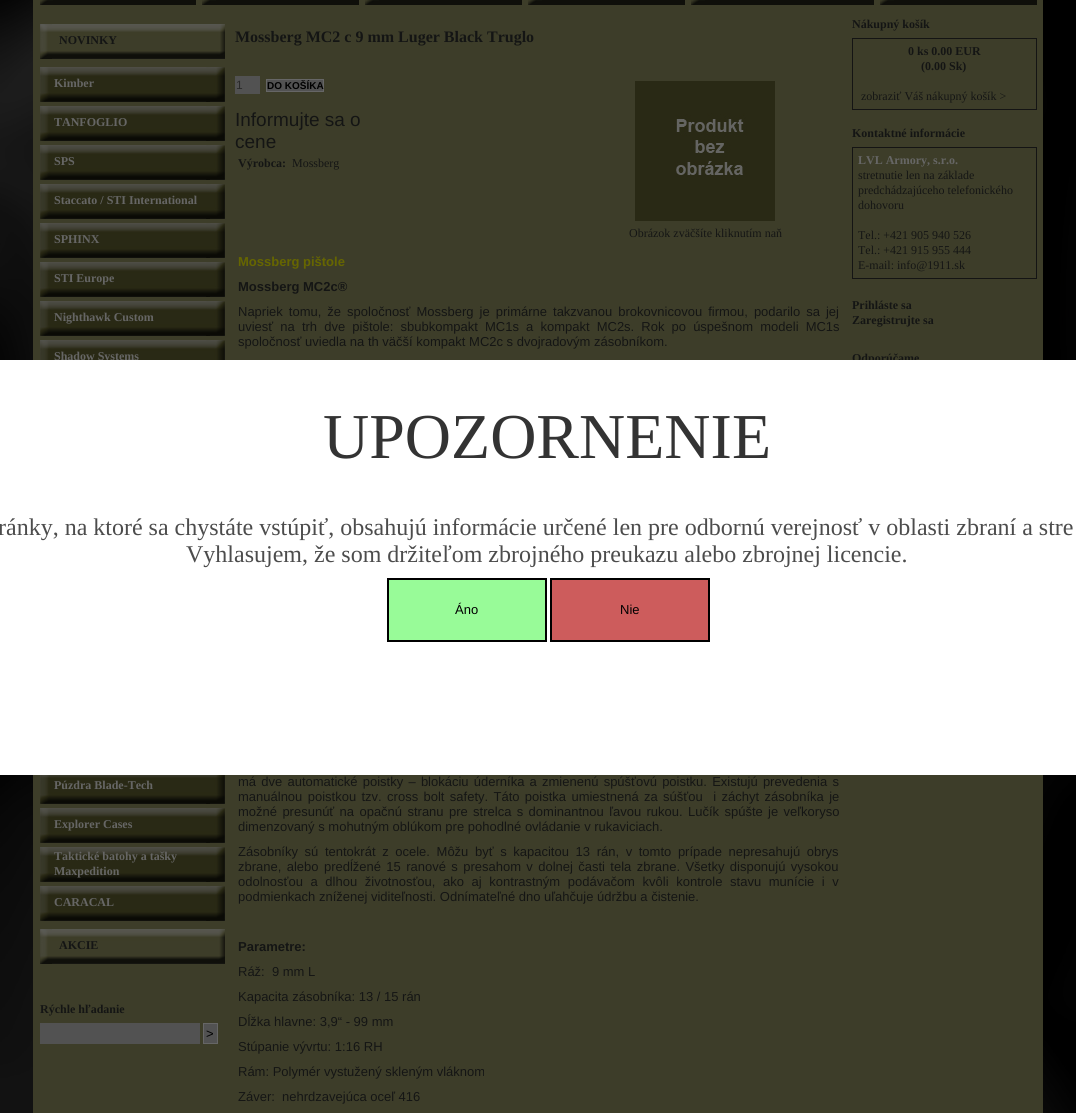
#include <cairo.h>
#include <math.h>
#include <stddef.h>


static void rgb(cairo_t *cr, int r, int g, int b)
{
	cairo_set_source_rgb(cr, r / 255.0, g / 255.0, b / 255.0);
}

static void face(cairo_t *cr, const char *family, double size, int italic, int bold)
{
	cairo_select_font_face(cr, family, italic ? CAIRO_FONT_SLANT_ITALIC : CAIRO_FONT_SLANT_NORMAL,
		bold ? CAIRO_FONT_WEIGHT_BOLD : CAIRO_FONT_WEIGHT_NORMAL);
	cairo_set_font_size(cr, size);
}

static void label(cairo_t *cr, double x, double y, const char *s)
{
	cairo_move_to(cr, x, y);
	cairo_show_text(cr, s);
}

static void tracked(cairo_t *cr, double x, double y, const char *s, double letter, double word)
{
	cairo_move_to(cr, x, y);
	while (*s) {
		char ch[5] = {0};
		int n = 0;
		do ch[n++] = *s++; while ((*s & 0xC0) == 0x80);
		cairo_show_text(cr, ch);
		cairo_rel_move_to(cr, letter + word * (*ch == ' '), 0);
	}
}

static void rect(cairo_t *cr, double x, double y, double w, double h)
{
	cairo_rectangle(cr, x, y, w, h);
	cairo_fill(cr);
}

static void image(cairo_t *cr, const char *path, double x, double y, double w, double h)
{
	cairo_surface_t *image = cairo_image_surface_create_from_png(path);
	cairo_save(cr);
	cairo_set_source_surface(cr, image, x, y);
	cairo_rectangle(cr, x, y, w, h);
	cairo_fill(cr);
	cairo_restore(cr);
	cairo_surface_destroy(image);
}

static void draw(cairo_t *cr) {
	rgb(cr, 255, 255, 255);
	cairo_paint(cr);
	image(cr, "image0.png", 0, 0, 1076, 1113);
	rgb(cr, 61, 61, 41);
	rect(cr, 33, 0, 1010, 1113);
	image(cr, "image1.png", 40, 0, 13, 5);
	rgb(cr, 15, 15, 10);
	rect(cr, 53, 0, 143, 5);
	image(cr, "image2.png", 202, 0, 14, 5);
	rect(cr, 216, 0, 143, 5);
	image(cr, "image2.png", 365, 0, 14, 5);
	rect(cr, 379, 0, 143, 5);
	image(cr, "image2.png", 528, 0, 14, 5);
	rect(cr, 542, 0, 143, 5);
	image(cr, "image2.png", 691, 0, 14, 5);
	rect(cr, 705, 0, 169, 5);
	image(cr, "image3.png", 880, 0, 14, 5);
	rect(cr, 894, 0, 143, 5);
	image(cr, "image4.png", 40, 24, 12, 35);
	image(cr, "image5.png", 52, 24, 156, 35);
	face(cr, "Liberation Serif", 12, 0, 1);
	rgb(cr, 20, 21, 20);
	label(cr, 59, 44, "NOVINKY");
	image(cr, "image6.png", 208, 24, 17, 35);
	image(cr, "image7.png", 40, 67, 14, 35);
	image(cr, "image8.png", 54, 67, 152, 35);
	rgb(cr, 102, 102, 101);
	label(cr, 54, 87, "Kimber");
	image(cr, "image9.png", 206, 67, 19, 35);
	image(cr, "image7.png", 40, 106, 14, 35);
	image(cr, "image8.png", 54, 106, 152, 35);
	label(cr, 54, 126, "TANFOGLIO");
	image(cr, "image9.png", 206, 106, 19, 35);
	image(cr, "image7.png", 40, 145, 14, 35);
	image(cr, "image8.png", 54, 145, 152, 35);
	label(cr, 54, 165, "SPS");
	image(cr, "image9.png", 206, 145, 19, 35);
	image(cr, "image7.png", 40, 184, 14, 35);
	image(cr, "image8.png", 54, 184, 152, 35);
	label(cr, 54, 204, "Staccato / STI International");
	image(cr, "image9.png", 206, 184, 19, 35);
	image(cr, "image7.png", 40, 223, 14, 35);
	image(cr, "image8.png", 54, 223, 152, 35);
	label(cr, 54, 243, "SPHINX");
	image(cr, "image9.png", 206, 223, 19, 35);
	image(cr, "image7.png", 40, 262, 14, 35);
	image(cr, "image8.png", 54, 262, 152, 35);
	label(cr, 54, 282, "STI Europe");
	image(cr, "image9.png", 206, 262, 19, 35);
	image(cr, "image7.png", 40, 301, 14, 35);
	image(cr, "image8.png", 54, 301, 152, 35);
	label(cr, 54, 321, "Nighthawk Custom");
	image(cr, "image9.png", 206, 301, 19, 35);
	image(cr, "image10.png", 40, 340, 14, 20);
	image(cr, "image11.png", 54, 340, 152, 20);
	label(cr, 54, 360, "Shadow Systems");
	image(cr, "image12.png", 206, 340, 19, 20);
	image(cr, "image13.png", 40, 775, 14, 29);
	image(cr, "image14.png", 54, 775, 152, 29);
	label(cr, 54, 789, "Púzdra Blade-Tech");
	image(cr, "image15.png", 206, 775, 19, 29);
	image(cr, "image7.png", 40, 808, 14, 35);
	image(cr, "image8.png", 54, 808, 152, 35);
	label(cr, 54, 828, "Explorer Cases");
	image(cr, "image9.png", 206, 808, 19, 35);
	image(cr, "image7.png", 40, 847, 14, 35);
	image(cr, "image8.png", 54, 847, 152, 35);
	label(cr, 54, 860, "Taktické batohy a tašky");
	label(cr, 54, 875, "Maxpedition");
	image(cr, "image9.png", 206, 847, 19, 35);
	image(cr, "image7.png", 40, 886, 14, 35);
	image(cr, "image8.png", 54, 886, 152, 35);
	label(cr, 54, 906, "CARACAL");
	image(cr, "image9.png", 206, 886, 19, 35);
	image(cr, "image16.png", 40, 929, 12, 35);
	image(cr, "image17.png", 52, 929, 155, 35);
	rgb(cr, 20, 21, 20);
	label(cr, 59, 949, "AKCIE");
	image(cr, "image18.png", 207, 929, 18, 35);
	label(cr, 40, 1013, "Rýchle hľadanie");
	rgb(cr, 82, 82, 82);
	rect(cr, 40, 1023, 160, 21);
	cairo_rectangle(cr, 203.5, 1023.5, 14, 20);
	cairo_fill_preserve(cr);
	rgb(cr, 102, 102, 102);
	cairo_set_line_width(cr, 1);
	cairo_stroke(cr);
	face(cr, "Liberation Sans", 13, 0, 0);
	rgb(cr, 0, 0, 0);
	label(cr, 206, 1038, ">");
	face(cr, "Liberation Serif", 16, 0, 1);
	rgb(cr, 20, 21, 20);
	label(cr, 235, 42, "Mossberg MC2 c 9 mm Luger Black Truglo");
	rgb(cr, 82, 82, 82);
	rect(cr, 235, 76, 25, 18);
	face(cr, "Liberation Sans", 12, 0, 0);
	rgb(cr, 41, 41, 41);
	label(cr, 236, 89, "1");
	rgb(cr, 82, 82, 82);
	cairo_rectangle(cr, 266.5, 79.5, 57, 12);
	cairo_fill_preserve(cr);
	rgb(cr, 102, 102, 102);
	cairo_stroke(cr);
	face(cr, "Liberation Sans", 10, 0, 1);
	rgb(cr, 0, 0, 0);
	label(cr, 267, 89, "DO KOŠÍKA");
	face(cr, "Liberation Sans", 19, 0, 0);
	rgb(cr, 20, 21, 20);
	label(cr, 235, 126, "Informujte sa o");
	label(cr, 235, 148, "cene");
	face(cr, "Liberation Serif", 12, 0, 1);
	label(cr, 238, 167, "Výrobca:");
	face(cr, "Liberation Serif", 12, 0, 0);
	label(cr, 292, 167, "Mossberg");
	image(cr, "image19.png", 635, 81, 140, 140);
	label(cr, 629, 237, "Obrázok zväčšíte kliknutím naň");
	face(cr, "Liberation Sans", 13, 0, 1);
	rgb(cr, 102, 102, 0);
	label(cr, 238, 266, "Mossberg pištole");
	rgb(cr, 20, 21, 20);
	label(cr, 238, 291, "Mossberg MC2c®");
	face(cr, "Liberation Sans", 13, 0, 0);
	tracked(cr, 238, 316, "Napriek tomu, že spoločnosť Mossberg je primárne takzvanou brokovnicovou firmou, podarilo sa jej", 0, 2.4);
	tracked(cr, 238, 331, "uviesť na trh dve pištole: sbubkompakt MC1s a kompakt MC2s. Rok po úspešnom modeli MC1s", 0, 3.5);
	label(cr, 238, 346, "spoločnosť uviedla na th väčší kompakt MC2c s dvojradovým zásobníkom.");
	tracked(cr, 238, 786, "má dve automatické poistky – blokáciu úderníka a zmienenú spúšťovú poistku. Existujú prevedenia s", 0, 1.6);
	tracked(cr, 238, 801, "manuálnou poistkou tzv. cross bolt safety. Táto poistka umiestnená za súšťou  i záchyt zásobníka je", 0, 1.75);
	tracked(cr, 238, 816, "možné presunúť na opačnú stranu pre strelca s dominantnou ľavou rukou. Lučík spúšte je veľkoryso", 0, 1.75);
	label(cr, 238, 831, "dimenzovaný s mohutným oblúkom pre pohodlné ovládanie v rukaviciach.");
	tracked(cr, 238, 856, "Zásobníky sú tentokrát z ocele. Môžu byť s kapacitou 13 rán, v tomto prípade nepresahujú obrys", 0, 3);
	tracked(cr, 238, 871, "zbrane, alebo predĺžené 15 ranové s presahom v dolnej časti tela zbrane. Všetky disponujú vysokou", 0, 1.75);
	tracked(cr, 238, 886, "odolnosťou a dlhou životnosťou, ako aj kontrastným podávačom kvôli kontrole stavu munície i v", 0, 4);
	label(cr, 238, 901, "podmienkach zníženej viditeľnosti. Odnímateľné dno uľahčuje údržbu a čistenie.");
	face(cr, "Liberation Sans", 13, 0, 1);
	label(cr, 238, 951, "Parametre:");
	face(cr, "Liberation Sans", 13, 0, 0);
	label(cr, 238, 976, "Ráž:  9 mm L");
	label(cr, 238, 1001, "Kapacita zásobníka: 13 / 15 rán");
	label(cr, 238, 1026, "Dĺžka hlavne: 3,9“ - 99 mm");
	label(cr, 238, 1051, "Stúpanie vývrtu: 1:16 RH");
	label(cr, 238, 1076, "Rám: Polymér vystužený skleným vláknom");
	label(cr, 238, 1101, "Záver:  nehrdzavejúca oceľ 416");
	face(cr, "Liberation Serif", 12, 0, 1);
	label(cr, 852, 28, "Nákupný košík");
	cairo_rectangle(cr, 852.5, 38.5, 184, 71);
	rgb(cr, 20, 20, 20);
	cairo_stroke(cr);
	rgb(cr, 20, 21, 20);
	label(cr, 908, 55, "0 ks 0.00 EUR");
	label(cr, 921, 70, "(0.00 Sk)");
	face(cr, "Liberation Serif", 12, 0, 0);
	label(cr, 861, 100, "zobraziť Váš nákupný košík >");
	face(cr, "Liberation Serif", 12, 0, 1);
	label(cr, 852, 137, "Kontaktné informácie");
	cairo_rectangle(cr, 852.5, 147.5, 184, 131);
	rgb(cr, 20, 20, 20);
	cairo_stroke(cr);
	rgb(cr, 102, 102, 101);
	label(cr, 858, 164, "LVL Armory, s.r.o.");
	face(cr, "Liberation Serif", 12, 0, 0);
	rgb(cr, 20, 21, 20);
	label(cr, 858, 179, "stretnutie len na základe");
	label(cr, 858, 194, "predchádzajúceho telefonického");
	label(cr, 858, 209, "dohovoru");
	label(cr, 858, 239, "Tel.: +421 905 940 526");
	label(cr, 858, 254, "Tel.: +421 915 955 444");
	label(cr, 858, 269, "E-mail: info@1911.sk");
	face(cr, "Liberation Serif", 12, 0, 1);
	label(cr, 852, 309, "Prihláste sa");
	label(cr, 852, 324, "Zaregistrujte sa");
	label(cr, 852, 362, "Odporúčame");
	rgb(cr, 255, 255, 255);
	rect(cr, 0, 360, 1076, 415);
	face(cr, "Liberation Serif", 64, 0, 0);
	rgb(cr, 51, 51, 51);
	label(cr, 323, 458, "UPOZORNENIE");
	face(cr, "Liberation Serif", 24, 0, 0);
	rgb(cr, 76, 76, 76);
	label(cr, -2, 535, "ránky, na ktoré sa chystáte vstúpiť, obsahujú informácie určené len pre odbornú verejnosť v oblasti zbraní a stre");
	label(cr, 186, 562, "Vyhlasujem, že som držiteľom zbrojného preukazu alebo zbrojnej licencie.");
	rgb(cr, 152, 251, 152);
	cairo_rectangle(cr, 388, 579, 158, 62);
	cairo_fill_preserve(cr);
	rgb(cr, 0, 0, 0);
	cairo_set_line_width(cr, 2);
	cairo_stroke(cr);
	face(cr, "Liberation Sans", 13, 0, 0);
	label(cr, 455, 614, "Áno");
	rgb(cr, 205, 92, 92);
	cairo_rectangle(cr, 551, 579, 158, 62);
	cairo_fill_preserve(cr);
	rgb(cr, 0, 0, 0);
	cairo_stroke(cr);
	label(cr, 620, 614, "Nie");
}

int main(void) {
	cairo_surface_t *surface = cairo_image_surface_create(CAIRO_FORMAT_RGB24, 1076, 1113);
	cairo_t *cr = cairo_create(surface);
	cairo_font_options_t *options = cairo_font_options_create();
	cairo_font_options_set_hint_metrics(options, CAIRO_HINT_METRICS_OFF);
	cairo_font_options_set_hint_style(options, CAIRO_HINT_STYLE_NONE);
	cairo_set_font_options(cr, options);
	cairo_set_miter_limit(cr, 4);
	draw(cr);
	cairo_surface_write_to_png(surface, "render.png");
	cairo_font_options_destroy(options);
	cairo_destroy(cr);
	cairo_surface_destroy(surface);
	return 0;
}
